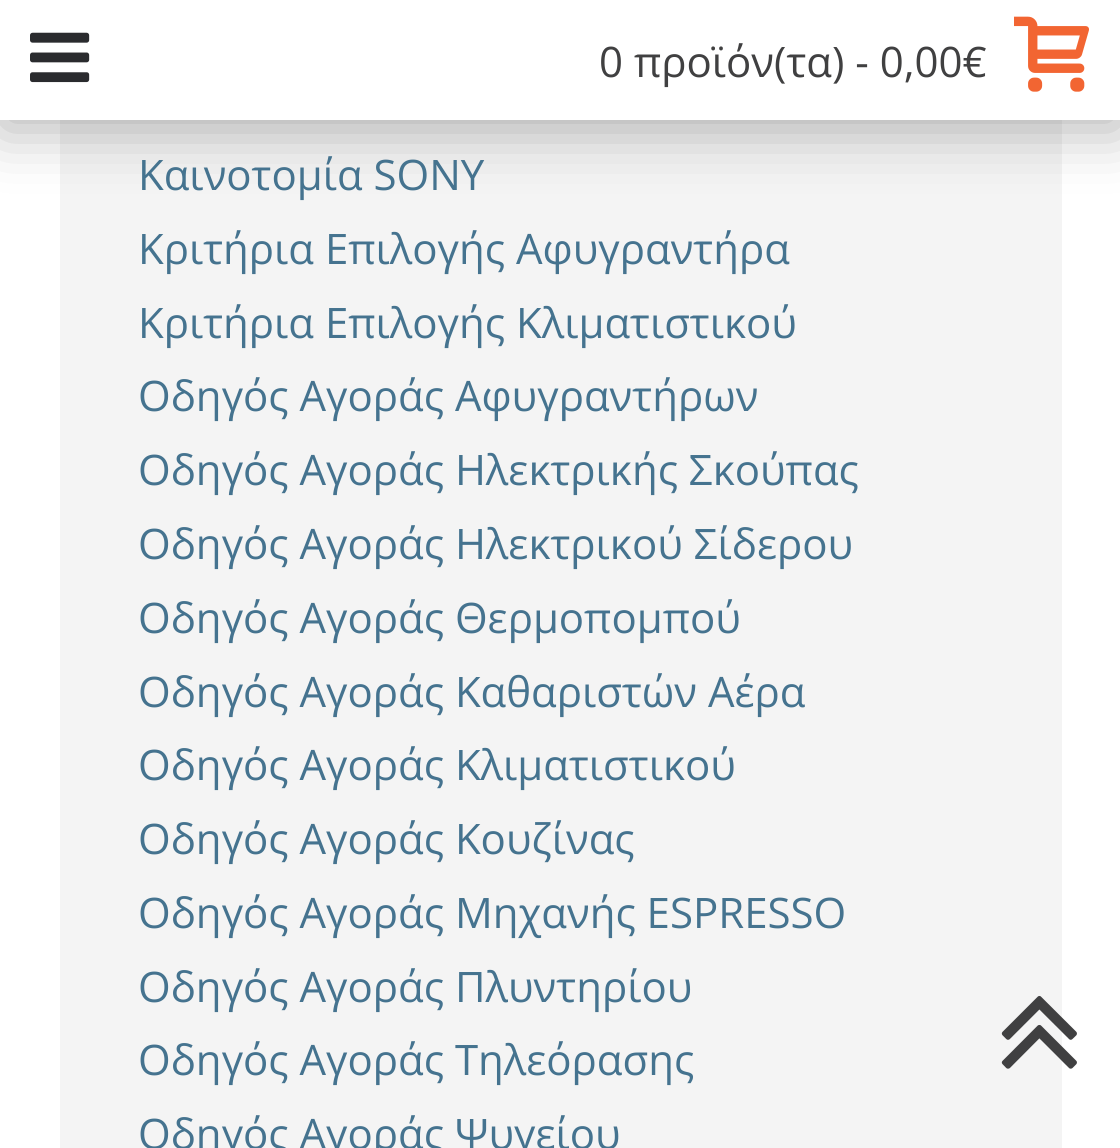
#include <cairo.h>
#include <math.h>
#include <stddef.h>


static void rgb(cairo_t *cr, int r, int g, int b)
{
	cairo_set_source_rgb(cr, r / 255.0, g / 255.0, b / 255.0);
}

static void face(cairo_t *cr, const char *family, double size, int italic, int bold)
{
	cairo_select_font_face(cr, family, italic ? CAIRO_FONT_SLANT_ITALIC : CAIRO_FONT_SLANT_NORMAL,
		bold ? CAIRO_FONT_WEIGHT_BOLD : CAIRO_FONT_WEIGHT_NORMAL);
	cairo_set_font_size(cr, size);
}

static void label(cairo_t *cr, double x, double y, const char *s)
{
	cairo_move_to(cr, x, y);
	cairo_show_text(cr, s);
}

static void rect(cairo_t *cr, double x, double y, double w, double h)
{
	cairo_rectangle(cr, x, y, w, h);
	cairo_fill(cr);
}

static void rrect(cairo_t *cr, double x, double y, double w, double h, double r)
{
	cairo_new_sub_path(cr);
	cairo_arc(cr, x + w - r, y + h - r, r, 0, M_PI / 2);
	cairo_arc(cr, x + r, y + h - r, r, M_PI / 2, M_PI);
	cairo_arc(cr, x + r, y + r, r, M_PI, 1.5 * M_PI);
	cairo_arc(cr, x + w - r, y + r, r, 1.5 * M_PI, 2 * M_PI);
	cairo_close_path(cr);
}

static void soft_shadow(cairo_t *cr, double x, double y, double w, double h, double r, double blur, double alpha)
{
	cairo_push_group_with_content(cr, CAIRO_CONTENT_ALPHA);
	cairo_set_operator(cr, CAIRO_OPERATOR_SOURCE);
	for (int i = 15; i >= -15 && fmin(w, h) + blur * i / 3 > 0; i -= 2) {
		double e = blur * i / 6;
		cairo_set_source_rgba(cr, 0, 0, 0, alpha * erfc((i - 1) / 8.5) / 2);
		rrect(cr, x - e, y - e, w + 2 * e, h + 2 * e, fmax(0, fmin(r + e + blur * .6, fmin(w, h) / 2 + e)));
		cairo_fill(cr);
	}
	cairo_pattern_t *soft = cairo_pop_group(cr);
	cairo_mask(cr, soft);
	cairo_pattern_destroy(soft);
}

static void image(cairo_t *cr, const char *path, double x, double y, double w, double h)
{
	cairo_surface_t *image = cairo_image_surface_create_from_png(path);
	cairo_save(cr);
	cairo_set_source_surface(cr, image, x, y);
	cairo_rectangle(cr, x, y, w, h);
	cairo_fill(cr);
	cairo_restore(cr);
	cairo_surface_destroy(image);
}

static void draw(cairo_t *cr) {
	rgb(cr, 255, 255, 255);
	cairo_paint(cr);
	rgb(cr, 244, 244, 244);
	rect(cr, 60, 120, 1002, 1028);
	rgb(cr, 0, 0, 0);
	soft_shadow(cr, 0, 9, 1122, 120, 0, 30, 0.3);
	rgb(cr, 255, 255, 255);
	rect(cr, 0, 0, 1120, 120);
	image(cr, "image0.png", 30, 32, 60, 51);
	face(cr, "Open Sans", 42, 0, 0);
	rgb(cr, 64, 64, 65);
	label(cr, 599, 77, "0 προϊόν(τα) - 0,00€");
	image(cr, "image1.png", 1014, 16, 75, 76);
	rgb(cr, 69, 115, 143);
	label(cr, 138, 190, "Καινοτομία SONY");
	label(cr, 138, 264, "Κριτήρια Επιλογής Αφυγραντήρα");
	label(cr, 138, 338, "Κριτήρια Επιλογής Κλιματιστικού");
	label(cr, 138, 411, "Οδηγός Αγοράς Αφυγραντήρων");
	label(cr, 138, 485, "Οδηγός Αγοράς Ηλεκτρικής Σκούπας");
	label(cr, 138, 559, "Οδηγός Αγοράς Ηλεκτρικού Σίδερου");
	label(cr, 138, 633, "Οδηγός Αγοράς Θερμοπομπού");
	label(cr, 138, 707, "Οδηγός Αγοράς Καθαριστών Αέρα");
	label(cr, 138, 780, "Οδηγός Αγοράς Κλιματιστικού");
	label(cr, 138, 854, "Οδηγός Αγοράς Κουζίνας");
	label(cr, 138, 928, "Οδηγός Αγοράς Μηχανής ESPRESSO");
	label(cr, 138, 1002, "Οδηγός Αγοράς Πλυντηρίου");
	label(cr, 138, 1075, "Οδηγός Αγοράς Τηλεόρασης");
	label(cr, 138, 1149, "Οδηγός Αγοράς Ψυγείου");
	image(cr, "image2.png", 1001, 995, 76, 74);
}

int main(void) {
	cairo_surface_t *surface = cairo_image_surface_create(CAIRO_FORMAT_RGB24, 1120, 1148);
	cairo_t *cr = cairo_create(surface);
	cairo_font_options_t *options = cairo_font_options_create();
	cairo_font_options_set_hint_metrics(options, CAIRO_HINT_METRICS_OFF);
	cairo_font_options_set_hint_style(options, CAIRO_HINT_STYLE_NONE);
	cairo_set_font_options(cr, options);
	cairo_set_miter_limit(cr, 4);
	draw(cr);
	cairo_surface_write_to_png(surface, "render.png");
	cairo_font_options_destroy(options);
	cairo_destroy(cr);
	cairo_surface_destroy(surface);
	return 0;
}
